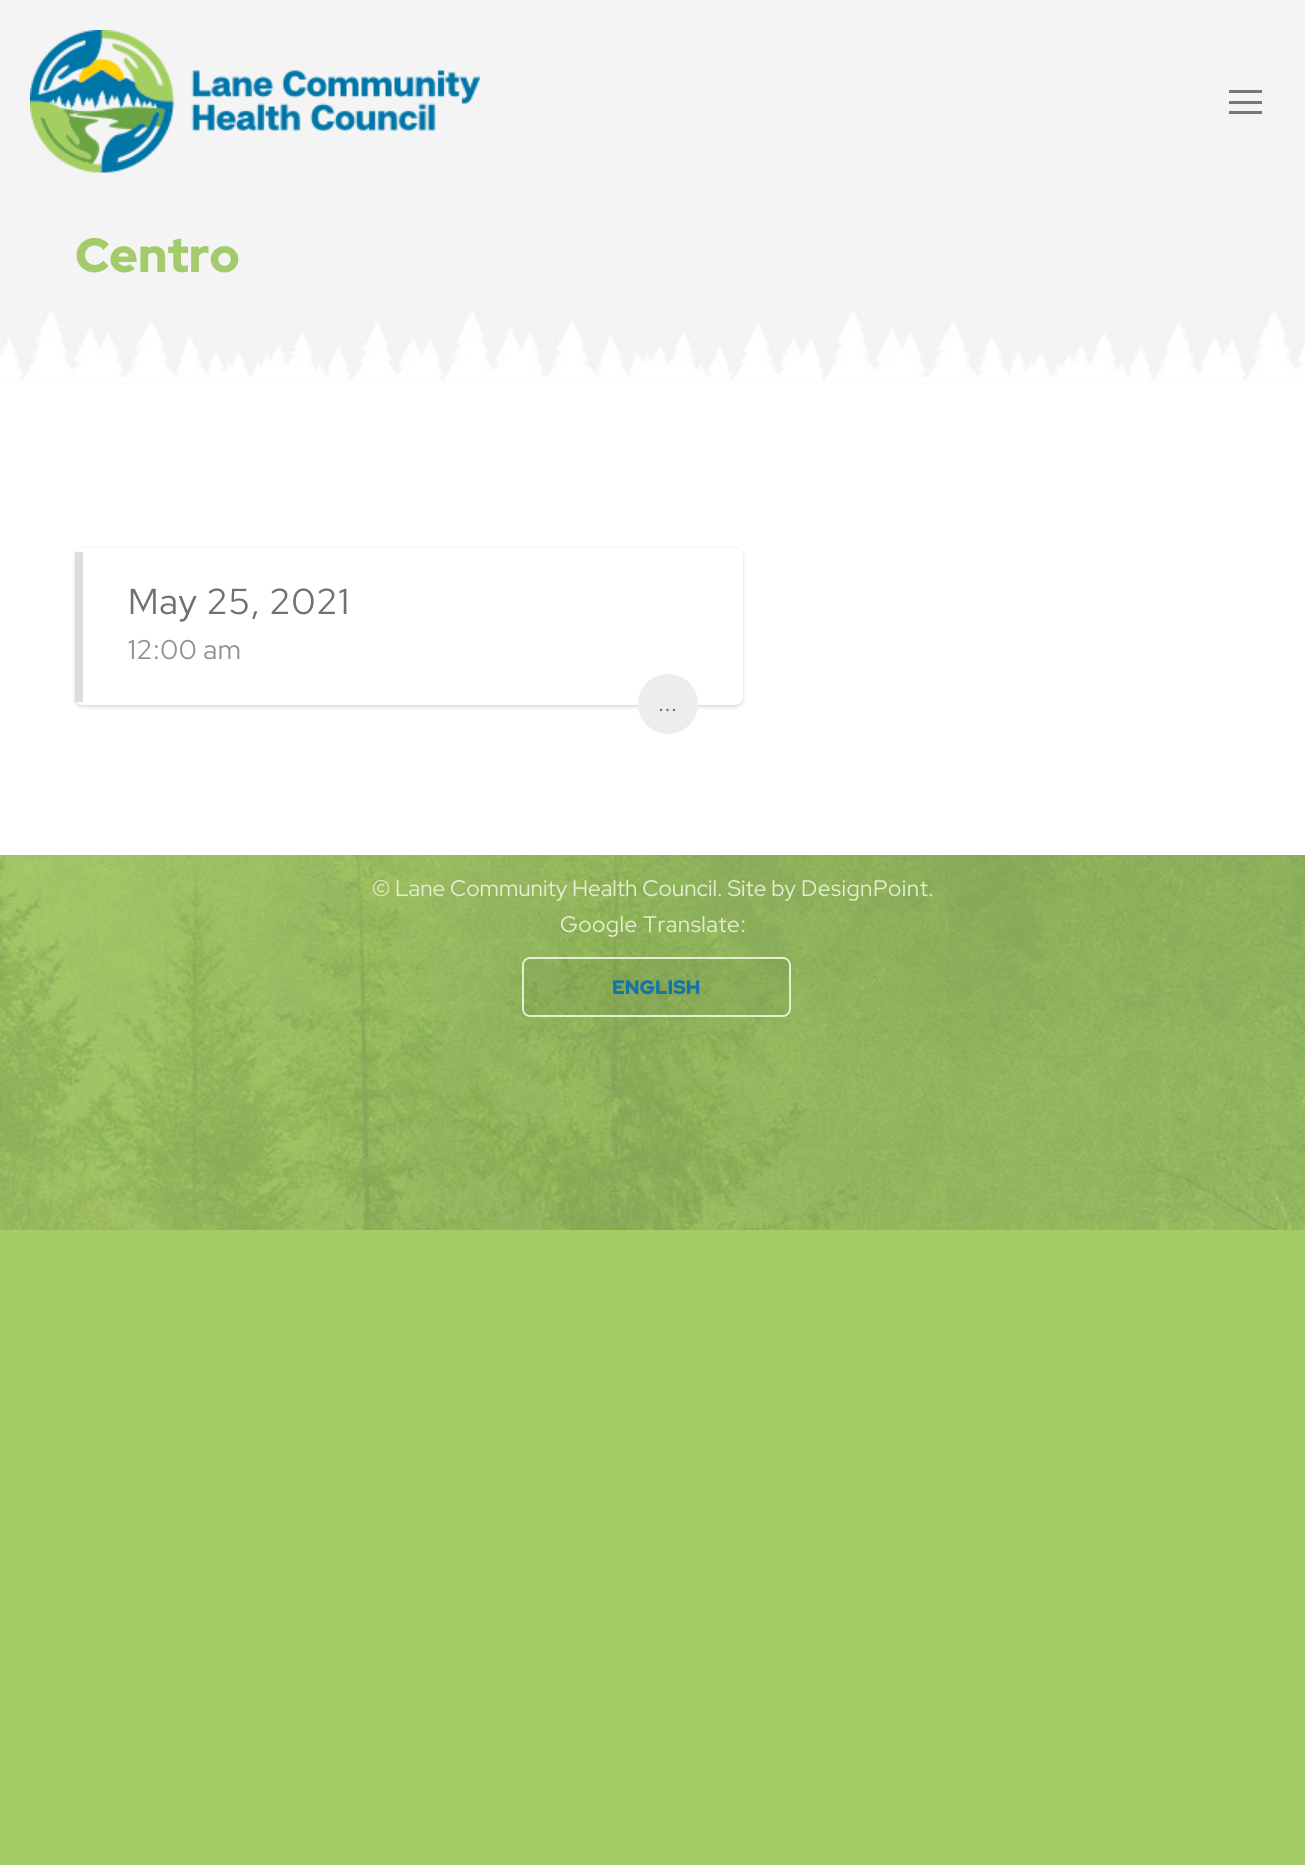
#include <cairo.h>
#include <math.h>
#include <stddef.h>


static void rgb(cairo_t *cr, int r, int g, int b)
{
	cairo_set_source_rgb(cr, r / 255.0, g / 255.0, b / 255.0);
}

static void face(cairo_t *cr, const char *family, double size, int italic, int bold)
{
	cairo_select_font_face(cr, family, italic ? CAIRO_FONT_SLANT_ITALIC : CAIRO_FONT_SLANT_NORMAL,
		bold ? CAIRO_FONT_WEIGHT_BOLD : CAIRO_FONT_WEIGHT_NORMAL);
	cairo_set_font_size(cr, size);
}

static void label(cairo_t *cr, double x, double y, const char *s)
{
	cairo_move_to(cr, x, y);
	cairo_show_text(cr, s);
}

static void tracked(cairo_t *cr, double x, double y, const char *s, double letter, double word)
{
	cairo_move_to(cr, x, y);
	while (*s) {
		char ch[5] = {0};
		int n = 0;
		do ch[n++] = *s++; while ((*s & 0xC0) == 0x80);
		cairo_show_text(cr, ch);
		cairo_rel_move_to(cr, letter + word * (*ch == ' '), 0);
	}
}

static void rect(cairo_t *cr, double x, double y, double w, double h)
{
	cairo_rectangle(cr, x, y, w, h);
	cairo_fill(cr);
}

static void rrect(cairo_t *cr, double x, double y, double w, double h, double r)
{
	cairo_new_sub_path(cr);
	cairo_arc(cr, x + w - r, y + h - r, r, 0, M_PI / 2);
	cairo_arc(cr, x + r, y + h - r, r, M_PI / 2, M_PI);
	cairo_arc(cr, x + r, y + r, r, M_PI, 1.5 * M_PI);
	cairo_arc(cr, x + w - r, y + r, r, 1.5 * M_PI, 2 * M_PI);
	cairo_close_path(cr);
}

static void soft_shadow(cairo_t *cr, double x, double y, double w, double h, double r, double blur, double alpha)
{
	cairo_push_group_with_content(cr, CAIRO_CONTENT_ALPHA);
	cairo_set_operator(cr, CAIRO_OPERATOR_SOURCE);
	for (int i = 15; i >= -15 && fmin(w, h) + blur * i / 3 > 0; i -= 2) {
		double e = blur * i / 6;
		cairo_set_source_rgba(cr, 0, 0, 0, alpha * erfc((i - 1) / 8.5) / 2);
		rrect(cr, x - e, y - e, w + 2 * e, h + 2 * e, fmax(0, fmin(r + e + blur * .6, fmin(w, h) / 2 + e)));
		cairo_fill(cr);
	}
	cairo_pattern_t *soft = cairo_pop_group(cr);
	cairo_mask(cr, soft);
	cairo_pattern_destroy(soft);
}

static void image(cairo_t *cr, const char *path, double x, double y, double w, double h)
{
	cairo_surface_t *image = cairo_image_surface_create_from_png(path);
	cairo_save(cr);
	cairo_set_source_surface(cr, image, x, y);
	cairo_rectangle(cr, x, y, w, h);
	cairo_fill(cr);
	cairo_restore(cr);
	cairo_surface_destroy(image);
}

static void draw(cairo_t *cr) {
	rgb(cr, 164, 205, 102);
	cairo_paint(cr);
	rgb(cr, 255, 255, 255);
	rect(cr, 0, 383, 1305, 472);
	rgb(cr, 244, 244, 244);
	rect(cr, 0, 0, 1305, 383);
	image(cr, "image0.png", 30, 30, 450, 143);
	rgb(cr, 119, 119, 119);
	rect(cr, 1229, 90, 33, 3);
	rect(cr, 1229, 101, 33, 3);
	rect(cr, 1229, 111, 33, 3);
	image(cr, "image1.png", 0, 310, 1305, 73);
	face(cr, "Red Hat Display Black", 48, 0, 0);
	rgb(cr, 164, 203, 107);
	label(cr, 75, 272, "Centro");
	rgb(cr, 0, 0, 0);
	soft_shadow(cr, 75, 549, 668, 158, 8, 2, 0.15);
	rgb(cr, 255, 255, 255);
	rrect(cr, 75, 548, 668, 157, 8);
	cairo_fill(cr);
	rgb(cr, 221, 221, 221);
	rect(cr, 75, 552, 8, 150);
	face(cr, "Red Hat Display", 36, 0, 0);
	rgb(cr, 112, 112, 112);
	tracked(cr, 128, 614, "May 25, 2021", 0.75, 0);
	face(cr, "Red Hat Display", 27, 0, 0);
	rgb(cr, 144, 144, 144);
	tracked(cr, 128, 659, "12:00 am", 0.5, 0);
	rgb(cr, 237, 237, 237);
	cairo_new_path(cr);
	cairo_arc(cr, 668, 704, 30, 0, 2 * M_PI);
	cairo_fill(cr);
	face(cr, "Red Hat Display", 24, 0, 0);
	rgb(cr, 112, 112, 112);
	tracked(cr, 658, 711, "...", 0.5, 0);
	image(cr, "image2.png", 0, 855, 1305, 375);
	face(cr, "Red Hat Display", 22.5, 0, 0);
	rgb(cr, 229, 238, 208);
	label(cr, 372, 896, "© Lane Community Health Council. Site by");
	tracked(cr, 801, 896, "DesignPoint", 0.5, 0);
	label(cr, 928, 896, ".");
	tracked(cr, 560, 932, "Google Translate:", 0.5, 0);
	cairo_set_source_rgba(cr, 0, 0, 0, 0.05);
	rect(cr, 522, 957, 269, 60);
	rrect(cr, 523, 958, 267, 58, 7);
	rgb(cr, 229, 238, 208);
	cairo_stroke(cr);
	face(cr, "Red Hat Display Black", 19.5, 0, 0);
	rgb(cr, 19, 118, 166);
	label(cr, 612, 994, "ENGLISH");
}

int main(void) {
	cairo_surface_t *surface = cairo_image_surface_create(CAIRO_FORMAT_RGB24, 1305, 1865);
	cairo_t *cr = cairo_create(surface);
	cairo_font_options_t *options = cairo_font_options_create();
	cairo_font_options_set_hint_metrics(options, CAIRO_HINT_METRICS_OFF);
	cairo_font_options_set_hint_style(options, CAIRO_HINT_STYLE_NONE);
	cairo_set_font_options(cr, options);
	cairo_set_miter_limit(cr, 4);
	draw(cr);
	cairo_surface_write_to_png(surface, "render.png");
	cairo_font_options_destroy(options);
	cairo_destroy(cr);
	cairo_surface_destroy(surface);
	return 0;
}
